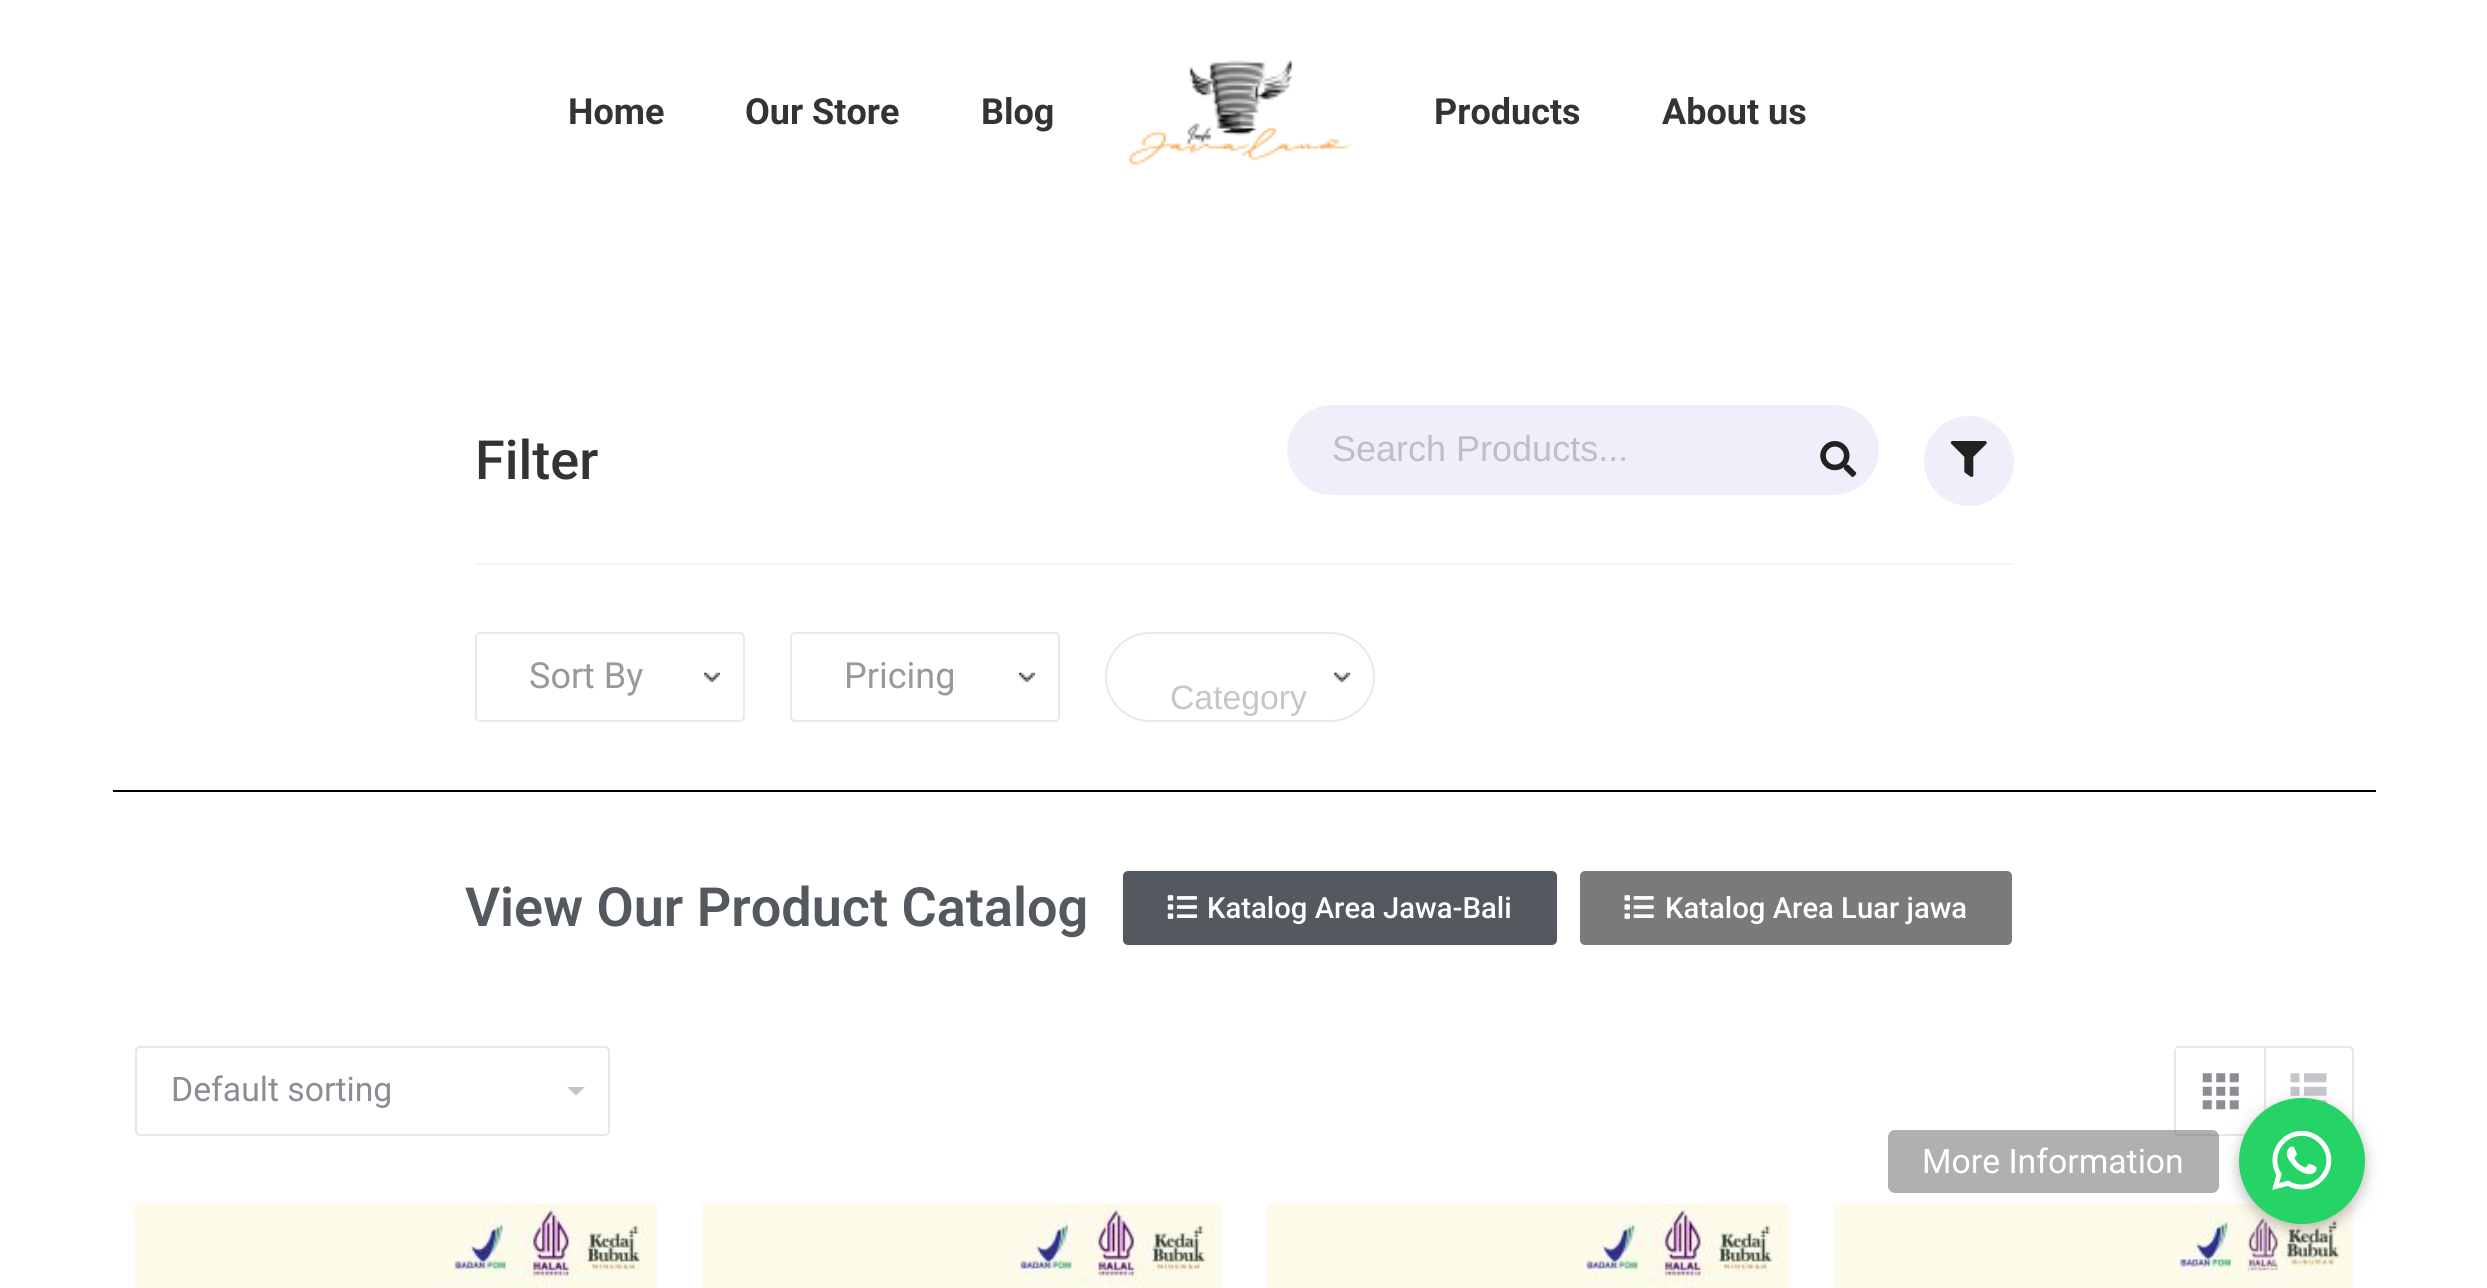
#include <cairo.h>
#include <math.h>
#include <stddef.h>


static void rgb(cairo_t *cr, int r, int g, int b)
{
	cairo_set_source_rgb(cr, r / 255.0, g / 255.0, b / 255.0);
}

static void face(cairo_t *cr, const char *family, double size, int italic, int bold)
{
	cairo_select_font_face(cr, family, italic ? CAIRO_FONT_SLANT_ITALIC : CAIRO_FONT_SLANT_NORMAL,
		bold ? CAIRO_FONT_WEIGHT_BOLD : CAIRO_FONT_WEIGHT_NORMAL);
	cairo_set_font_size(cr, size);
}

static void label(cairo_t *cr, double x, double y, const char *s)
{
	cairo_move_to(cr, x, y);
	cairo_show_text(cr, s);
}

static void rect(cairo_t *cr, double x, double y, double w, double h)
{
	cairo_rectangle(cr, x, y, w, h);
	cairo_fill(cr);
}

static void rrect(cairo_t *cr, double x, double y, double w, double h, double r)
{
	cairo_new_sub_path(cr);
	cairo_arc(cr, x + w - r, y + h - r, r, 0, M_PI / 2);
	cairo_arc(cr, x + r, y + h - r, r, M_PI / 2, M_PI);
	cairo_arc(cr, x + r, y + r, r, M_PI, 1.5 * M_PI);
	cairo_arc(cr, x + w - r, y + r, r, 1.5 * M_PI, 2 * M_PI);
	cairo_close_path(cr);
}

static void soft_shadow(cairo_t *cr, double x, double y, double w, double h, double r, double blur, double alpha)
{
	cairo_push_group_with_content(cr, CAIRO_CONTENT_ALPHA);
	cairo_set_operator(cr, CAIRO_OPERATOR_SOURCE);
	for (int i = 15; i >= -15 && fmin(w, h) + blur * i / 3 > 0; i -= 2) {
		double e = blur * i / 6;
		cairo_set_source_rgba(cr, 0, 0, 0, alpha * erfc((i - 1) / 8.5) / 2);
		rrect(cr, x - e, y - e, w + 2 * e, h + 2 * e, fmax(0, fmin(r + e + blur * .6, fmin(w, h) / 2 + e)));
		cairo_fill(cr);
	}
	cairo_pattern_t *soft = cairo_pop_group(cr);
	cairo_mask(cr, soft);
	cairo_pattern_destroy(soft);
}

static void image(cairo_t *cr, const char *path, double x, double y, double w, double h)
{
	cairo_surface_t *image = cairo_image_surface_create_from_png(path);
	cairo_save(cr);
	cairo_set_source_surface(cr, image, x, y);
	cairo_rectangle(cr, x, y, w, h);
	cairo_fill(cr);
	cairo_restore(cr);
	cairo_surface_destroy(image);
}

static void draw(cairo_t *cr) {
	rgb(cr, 255, 255, 255);
	cairo_paint(cr);
	face(cr, "Roboto", 36, 0, 1);
	rgb(cr, 51, 51, 51);
	label(cr, 568, 124, "Home");
	label(cr, 745, 124, "Our Store");
	label(cr, 981, 124, "Blog");
	image(cr, "image0.png", 1129, 60, 223, 105);
	label(cr, 1434, 124, "Products");
	label(cr, 1662, 124, "About us");
	face(cr, "Roboto Medium", 54, 0, 0);
	label(cr, 475, 479, "Filter");
	rgb(cr, 238, 239, 251);
	rrect(cr, 1287, 405, 592, 90, 45);
	cairo_fill(cr);
	face(cr, "Liberation Sans", 36, 0, 0);
	rgb(cr, 189, 190, 200);
	label(cr, 1332, 461, "Search Products...");
	image(cr, "image1.png", 1820, 441, 37, 36);
	rgb(cr, 238, 239, 251);
	cairo_arc(cr, 1969, 461, 45, 0, 2 * M_PI);
	cairo_fill(cr);
	image(cr, "image2.png", 1950, 441, 37, 36);
	rgb(cr, 239, 246, 255);
	rect(cr, 475, 563, 1539, 2);
	image(cr, "image3.png", 704, 672, 16, 10);
	rrect(cr, 476, 633, 268, 88, 4);
	rgb(cr, 233, 233, 233);
	cairo_stroke(cr);
	face(cr, "Roboto", 36, 0, 0);
	rgb(cr, 153, 153, 153);
	label(cr, 529, 688, "Sort By");
	image(cr, "image3.png", 1019, 672, 16, 10);
	rrect(cr, 791, 633, 268, 88, 4);
	rgb(cr, 233, 233, 233);
	cairo_stroke(cr);
	rgb(cr, 153, 153, 153);
	label(cr, 844, 688, "Pricing");
	image(cr, "image4.png", 1334, 672, 16, 10);
	rrect(cr, 1106, 633, 268, 88, 44);
	rgb(cr, 233, 233, 233);
	cairo_stroke(cr);
	face(cr, "Liberation Sans", 33.75, 0, 0);
	rgb(cr, 197, 198, 202);
	label(cr, 1170, 709, "Category");
	rgb(cr, 0, 0, 0);
	rect(cr, 113, 790, 2263, 2);
	face(cr, "Roboto SemiBold", 54, 0, 0);
	rgb(cr, 84, 89, 95);
	label(cr, 465, 926, "View Our Product Catalog");
	rrect(cr, 1123, 871, 434, 74, 5);
	cairo_fill(cr);
	image(cr, "image5.png", 1167, 895, 30, 24);
	face(cr, "Roboto Medium", 29.25, 0, 0);
	rgb(cr, 255, 255, 255);
	label(cr, 1207, 918, "Katalog Area Jawa-Bali");
	rgb(cr, 122, 122, 122);
	rrect(cr, 1580, 871, 432, 74, 5);
	cairo_fill(cr);
	image(cr, "image6.png", 1624, 895, 30, 24);
	rgb(cr, 255, 255, 255);
	label(cr, 1665, 918, "Katalog Area Luar jawa");
	rgb(cr, 196, 197, 201);
	cairo_new_path(cr);
	cairo_move_to(cr, 567, 1087);
	cairo_line_to(cr, 576, 1095.5);
	cairo_line_to(cr, 585, 1087);
	cairo_close_path(cr);
	cairo_fill(cr);
	rrect(cr, 136, 1047, 473, 88, 4);
	rgb(cr, 231, 231, 231);
	cairo_stroke(cr);
	face(cr, "Roboto", 33.75, 0, 0);
	rgb(cr, 139, 141, 148);
	label(cr, 171, 1101, "Default sorting");
	rgb(cr, 231, 231, 231);
	rect(cr, 2176, 1046, 88, 2);
	rect(cr, 2176, 1134, 69, 2);
	rect(cr, 2174, 1049, 2, 85);
	image(cr, "image7.png", 2202, 1073, 37, 37);
	cairo_new_path(cr);
	cairo_move_to(cr, 2265, 1047);
	cairo_line_to(cr, 2349, 1047);
	cairo_curve_to(cr, 2351, 1047, 2353, 1049, 2353, 1051);
	cairo_line_to(cr, 2353, 1131);
	cairo_curve_to(cr, 2353, 1133, 2351, 1135, 2349, 1135);
	cairo_line_to(cr, 2265, 1135);
	cairo_close_path(cr);
	cairo_stroke(cr);
	image(cr, "image8.png", 2290, 1073, 37, 31);
	image(cr, "image9.png", 135, 1203, 522, 85);
	image(cr, "image10.png", 702, 1203, 520, 85);
	image(cr, "image11.png", 1266, 1203, 523, 85);
	image(cr, "image12.png", 1833, 1203, 521, 85);
	rgb(cr, 0, 0, 0);
	soft_shadow(cr, 2239, 1103, 126, 126, 63, 11, 0.12);
	soft_shadow(cr, 2239, 1103, 126, 126, 63, 5.5, 0.16);
	rgb(cr, 37, 211, 102);
	cairo_arc(cr, 2302, 1161, 63, 0, 2 * M_PI);
	cairo_fill(cr);
	cairo_set_source_rgba(cr, 0.306, 0.298, 0.298, 0.44);
	rrect(cr, 1888, 1130, 331, 63, 7);
	cairo_fill(cr);
	rgb(cr, 255, 255, 255);
	label(cr, 1922, 1173, "More Information");
	image(cr, "image13.png", 2272, 1130, 60, 60);
}

int main(void) {
	cairo_surface_t *surface = cairo_image_surface_create(CAIRO_FORMAT_RGB24, 2487, 1288);
	cairo_t *cr = cairo_create(surface);
	cairo_font_options_t *options = cairo_font_options_create();
	cairo_font_options_set_hint_metrics(options, CAIRO_HINT_METRICS_OFF);
	cairo_font_options_set_hint_style(options, CAIRO_HINT_STYLE_NONE);
	cairo_set_font_options(cr, options);
	cairo_set_miter_limit(cr, 4);
	draw(cr);
	cairo_surface_write_to_png(surface, "render.png");
	cairo_font_options_destroy(options);
	cairo_destroy(cr);
	cairo_surface_destroy(surface);
	return 0;
}
